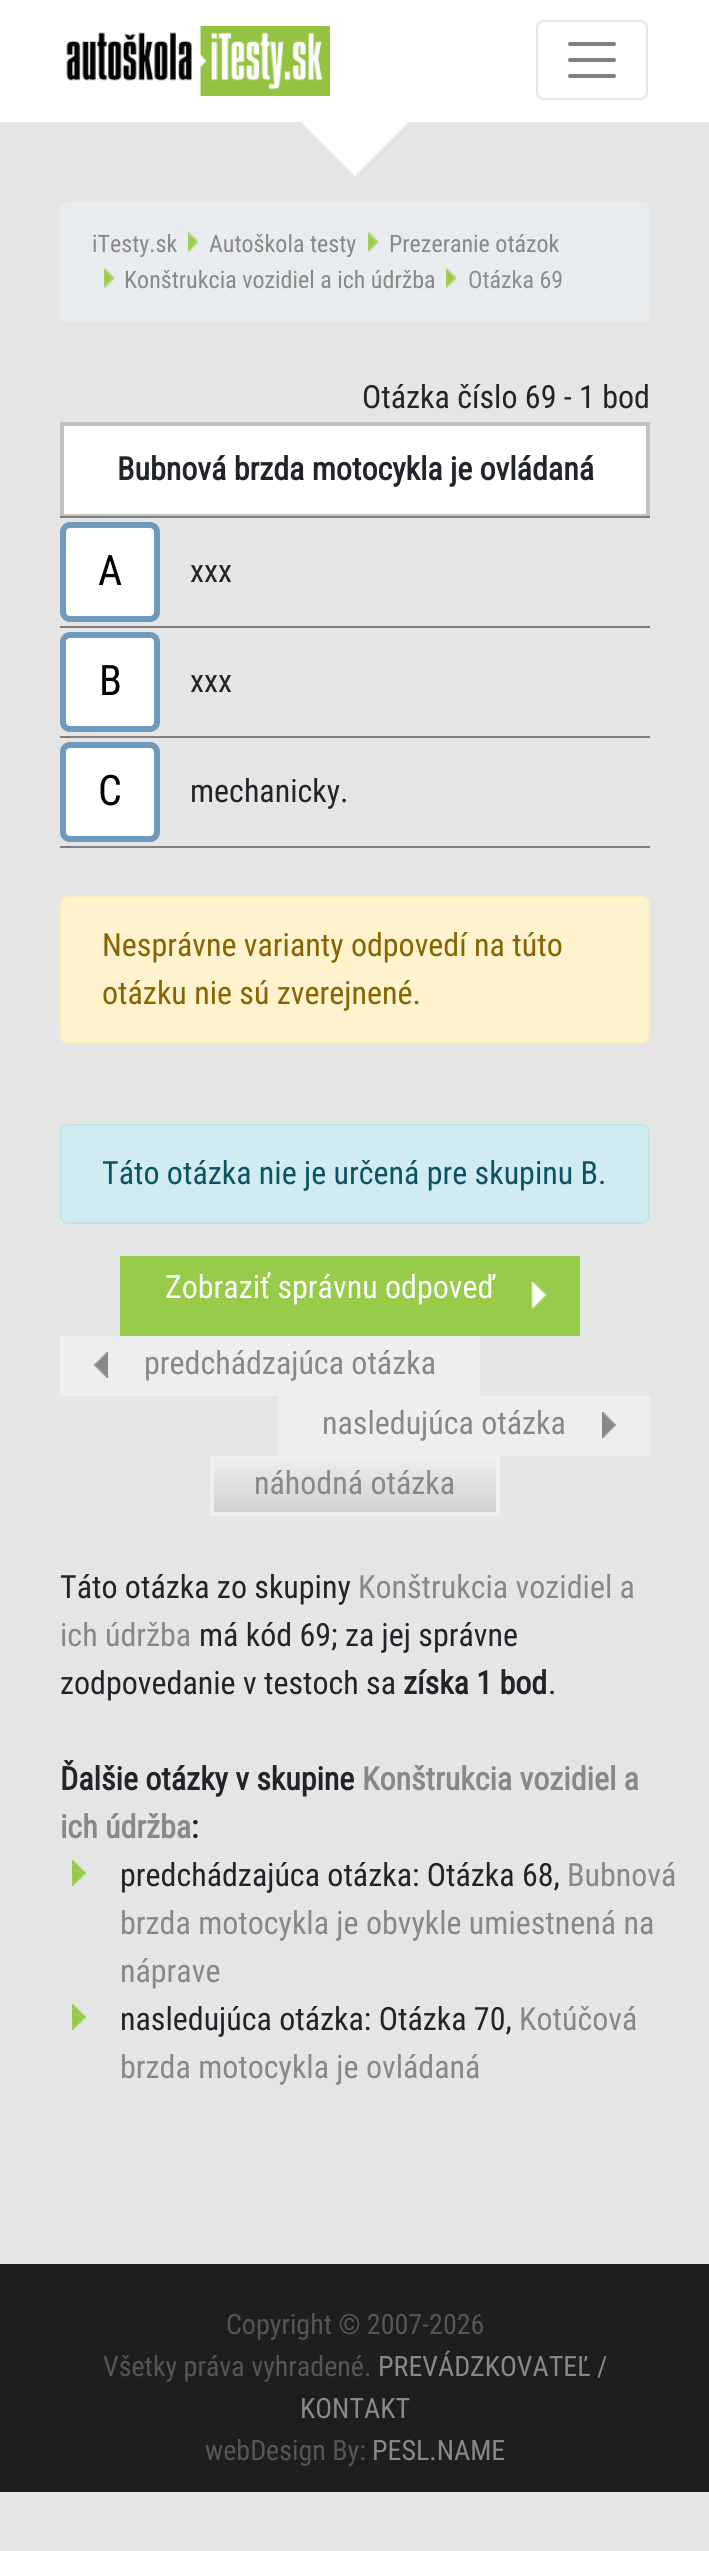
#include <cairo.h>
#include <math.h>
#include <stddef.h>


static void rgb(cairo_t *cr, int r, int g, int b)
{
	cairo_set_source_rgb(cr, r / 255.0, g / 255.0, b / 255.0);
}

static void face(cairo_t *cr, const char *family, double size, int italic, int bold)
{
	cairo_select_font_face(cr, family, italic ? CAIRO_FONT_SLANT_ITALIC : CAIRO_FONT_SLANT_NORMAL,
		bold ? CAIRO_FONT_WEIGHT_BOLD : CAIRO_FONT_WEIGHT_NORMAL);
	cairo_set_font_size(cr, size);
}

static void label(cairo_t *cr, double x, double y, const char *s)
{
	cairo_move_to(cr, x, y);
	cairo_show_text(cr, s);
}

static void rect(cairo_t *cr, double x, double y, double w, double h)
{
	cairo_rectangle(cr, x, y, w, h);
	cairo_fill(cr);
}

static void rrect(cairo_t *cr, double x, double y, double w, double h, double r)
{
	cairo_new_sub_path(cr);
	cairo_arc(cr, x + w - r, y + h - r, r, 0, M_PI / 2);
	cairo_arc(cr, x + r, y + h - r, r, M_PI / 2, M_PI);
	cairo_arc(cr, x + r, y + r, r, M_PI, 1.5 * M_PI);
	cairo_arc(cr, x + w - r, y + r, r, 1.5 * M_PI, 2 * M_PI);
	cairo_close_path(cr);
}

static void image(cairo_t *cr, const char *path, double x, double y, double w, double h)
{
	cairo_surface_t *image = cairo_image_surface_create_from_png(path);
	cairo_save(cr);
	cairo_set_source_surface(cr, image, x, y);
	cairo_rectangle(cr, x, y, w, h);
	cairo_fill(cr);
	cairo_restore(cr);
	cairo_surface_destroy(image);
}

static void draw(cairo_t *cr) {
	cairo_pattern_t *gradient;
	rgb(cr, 229, 229, 229);
	cairo_paint(cr);
	rgb(cr, 255, 255, 255);
	rect(cr, 0, 0, 709, 122);
	image(cr, "image0.png", 66, 26, 264, 70);
	rrect(cr, 537, 21, 110, 78, 7);
	rgb(cr, 230, 230, 230);
	cairo_stroke(cr);
	cairo_new_path(cr);
	cairo_move_to(cr, 570, 44);
	cairo_line_to(cr, 614, 44);
	cairo_move_to(cr, 570, 60);
	cairo_line_to(cr, 614, 60);
	cairo_move_to(cr, 570, 76);
	cairo_line_to(cr, 614, 76);
	rgb(cr, 128, 128, 128);
	cairo_set_line_width(cr, 4);
	cairo_set_line_cap(cr, CAIRO_LINE_CAP_ROUND);
	cairo_stroke(cr);
	image(cr, "image1.png", 302, 122, 106, 54);
	rgb(cr, 233, 236, 239);
	rrect(cr, 60, 202, 590, 120, 8);
	cairo_fill(cr);
	face(cr, "Roboto Condensed", 24, 0, 0);
	rgb(cr, 136, 136, 136);
	label(cr, 92, 252, "iTesty.sk");
	image(cr, "image2.png", 188, 232, 10, 20);
	label(cr, 209, 252, "Autoškola testy");
	image(cr, "image2.png", 368, 232, 10, 20);
	label(cr, 389, 252, "Prezeranie otázok");
	image(cr, "image2.png", 104, 268, 10, 20);
	label(cr, 124, 288, "Konštrukcia vozidiel a ich údržba");
	image(cr, "image2.png", 446, 268, 10, 20);
	rgb(cr, 134, 142, 150);
	label(cr, 468, 288, "Otázka 69");
	face(cr, "Roboto Condensed", 32, 0, 0);
	rgb(cr, 33, 37, 41);
	label(cr, 362, 408, "Otázka číslo 69 - 1 bod");
	rgb(cr, 255, 255, 255);
	cairo_rectangle(cr, 62, 424, 586, 92);
	cairo_fill_preserve(cr);
	rgb(cr, 192, 192, 192);
	cairo_set_line_cap(cr, CAIRO_LINE_CAP_BUTT);
	cairo_stroke(cr);
	face(cr, "Roboto Condensed", 32, 0, 1);
	rgb(cr, 33, 37, 41);
	label(cr, 117, 480, "Bubnová brzda motocykla je ovládaná");
	rgb(cr, 128, 128, 128);
	rect(cr, 60, 516, 590, 2);
	rect(cr, 60, 626, 590, 2);
	rgb(cr, 255, 255, 255);
	rrect(cr, 63, 525, 94, 94, 7);
	cairo_fill_preserve(cr);
	rgb(cr, 111, 154, 188);
	cairo_set_line_width(cr, 6);
	cairo_stroke(cr);
	face(cr, "Roboto Condensed", 42, 0, 0);
	rgb(cr, 0, 0, 0);
	label(cr, 98, 585, "A");
	face(cr, "Roboto Condensed", 32, 0, 0);
	rgb(cr, 33, 37, 41);
	label(cr, 190, 582, "xxx");
	rgb(cr, 128, 128, 128);
	rect(cr, 60, 736, 590, 2);
	rgb(cr, 255, 255, 255);
	rrect(cr, 63, 635, 94, 94, 7);
	cairo_fill_preserve(cr);
	rgb(cr, 111, 154, 188);
	cairo_stroke(cr);
	face(cr, "Roboto Condensed", 42, 0, 0);
	rgb(cr, 0, 0, 0);
	label(cr, 99, 695, "B");
	face(cr, "Roboto Condensed", 32, 0, 0);
	rgb(cr, 33, 37, 41);
	label(cr, 190, 692, "xxx");
	rgb(cr, 128, 128, 128);
	rect(cr, 60, 846, 590, 2);
	rgb(cr, 255, 255, 255);
	rrect(cr, 63, 745, 94, 94, 7);
	cairo_fill_preserve(cr);
	rgb(cr, 111, 154, 188);
	cairo_stroke(cr);
	face(cr, "Roboto Condensed", 42, 0, 0);
	rgb(cr, 0, 0, 0);
	label(cr, 98, 805, "C");
	face(cr, "Roboto Condensed", 32, 0, 0);
	rgb(cr, 33, 37, 41);
	label(cr, 190, 802, "mechanicky.");
	rgb(cr, 255, 243, 205);
	rrect(cr, 61, 897, 588, 146, 7);
	cairo_fill_preserve(cr);
	rgb(cr, 255, 238, 186);
	cairo_set_line_width(cr, 2);
	cairo_stroke(cr);
	rgb(cr, 133, 100, 4);
	label(cr, 102, 956, "Nesprávne varianty odpovedí na túto");
	label(cr, 102, 1004, "otázku nie sú zverejnené.");
	rgb(cr, 209, 236, 241);
	rrect(cr, 61, 1125, 588, 98, 7);
	cairo_fill_preserve(cr);
	rgb(cr, 190, 229, 235);
	cairo_stroke(cr);
	rgb(cr, 12, 84, 96);
	label(cr, 102, 1184, "Táto otázka nie je určená pre skupinu B.");
	rgb(cr, 152, 203, 74);
	rect(cr, 120, 1256, 460, 80);
	image(cr, "image3.png", 531, 1281, 16, 28);
	rgb(cr, 255, 255, 255);
	label(cr, 165, 1298, "Zobraziť správnu odpoveď");
	rgb(cr, 238, 238, 238);
	rect(cr, 60, 1336, 420, 60);
	image(cr, "image4.png", 94, 1352, 14, 26);
	rgb(cr, 136, 136, 136);
	label(cr, 144, 1374, "predchádzajúca otázka");
	rgb(cr, 238, 238, 238);
	rect(cr, 278, 1396, 372, 60);
	image(cr, "image5.png", 602, 1412, 14, 26);
	rgb(cr, 136, 136, 136);
	label(cr, 322, 1434, "nasledujúca otázka");
	gradient = cairo_pattern_create_linear(355, 1460, 355, 1512);
	cairo_pattern_add_color_stop_rgba(gradient, 0, 0.925, 0.925, 0.925, 1);
	cairo_pattern_add_color_stop_rgba(gradient, 1, 0.82, 0.82, 0.82, 1);
	cairo_set_source(cr, gradient);
	cairo_pattern_destroy(gradient);
	rect(cr, 214, 1460, 282, 52);
	cairo_rectangle(cr, 212, 1458, 286, 56);
	rgb(cr, 238, 238, 238);
	cairo_set_line_width(cr, 4);
	cairo_stroke(cr);
	rgb(cr, 136, 136, 136);
	label(cr, 254, 1494, "náhodná otázka");
	rgb(cr, 33, 37, 41);
	label(cr, 60, 1598, "Táto otázka zo skupiny");
	rgb(cr, 136, 136, 136);
	label(cr, 358, 1598, "Konštrukcia vozidiel a");
	label(cr, 60, 1646, "ich údržba");
	rgb(cr, 33, 37, 41);
	label(cr, 199, 1646, "má kód 69; za jej správne");
	label(cr, 60, 1694, "zodpovedanie v testoch sa");
	face(cr, "Roboto Condensed", 32, 0, 1);
	label(cr, 403, 1694, "získa 1 bod");
	face(cr, "Roboto Condensed", 32, 0, 0);
	label(cr, 548, 1694, ".");
	face(cr, "Roboto Condensed", 32, 0, 1);
	label(cr, 60, 1790, "Ďalšie otázky v skupine");
	rgb(cr, 136, 136, 136);
	label(cr, 362, 1790, "Konštrukcia vozidiel a");
	label(cr, 60, 1838, "ich údržba");
	rgb(cr, 33, 37, 41);
	label(cr, 191, 1838, ":");
	image(cr, "image6.png", 72, 1860, 14, 26);
	face(cr, "Roboto Condensed", 32, 0, 0);
	label(cr, 120, 1886, "predchádzajúca otázka: Otázka 68,");
	rgb(cr, 136, 136, 136);
	label(cr, 567, 1886, "Bubnová");
	label(cr, 120, 1934, "brzda motocykla je obvykle umiestnená na");
	label(cr, 120, 1982, "náprave");
	image(cr, "image6.png", 72, 2004, 14, 26);
	rgb(cr, 33, 37, 41);
	label(cr, 120, 2030, "nasledujúca otázka: Otázka 70,");
	rgb(cr, 136, 136, 136);
	label(cr, 519, 2030, "Kotúčová");
	label(cr, 120, 2078, "brzda motocykla je ovládaná");
	rgb(cr, 30, 30, 30);
	rect(cr, 0, 2264, 709, 228);
	face(cr, "Roboto Condensed", 28, 0, 0);
	rgb(cr, 85, 85, 85);
	label(cr, 226, 2334, "Copyright © 2007-2026");
	label(cr, 103, 2376, "Všetky práva vyhradené.");
	rgb(cr, 136, 136, 136);
	label(cr, 378, 2376, "PREVÁDZKOVATEĽ /");
	label(cr, 300, 2418, "KONTAKT");
	rgb(cr, 85, 85, 85);
	label(cr, 205, 2460, "webDesign By:");
	rgb(cr, 136, 136, 136);
	label(cr, 372, 2460, "PESL.NAME");
}

int main(void) {
	cairo_surface_t *surface = cairo_image_surface_create(CAIRO_FORMAT_RGB24, 709, 2551);
	cairo_t *cr = cairo_create(surface);
	cairo_font_options_t *options = cairo_font_options_create();
	cairo_font_options_set_hint_metrics(options, CAIRO_HINT_METRICS_OFF);
	cairo_font_options_set_hint_style(options, CAIRO_HINT_STYLE_NONE);
	cairo_set_font_options(cr, options);
	cairo_set_miter_limit(cr, 4);
	draw(cr);
	cairo_surface_write_to_png(surface, "render.png");
	cairo_font_options_destroy(options);
	cairo_destroy(cr);
	cairo_surface_destroy(surface);
	return 0;
}
